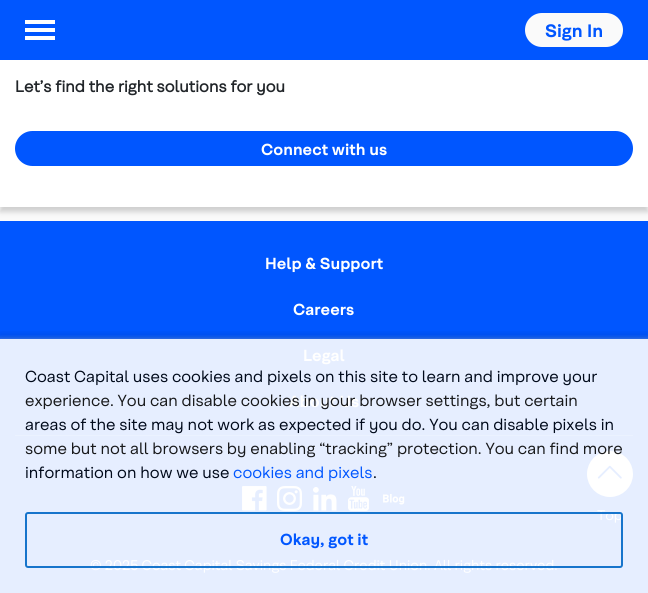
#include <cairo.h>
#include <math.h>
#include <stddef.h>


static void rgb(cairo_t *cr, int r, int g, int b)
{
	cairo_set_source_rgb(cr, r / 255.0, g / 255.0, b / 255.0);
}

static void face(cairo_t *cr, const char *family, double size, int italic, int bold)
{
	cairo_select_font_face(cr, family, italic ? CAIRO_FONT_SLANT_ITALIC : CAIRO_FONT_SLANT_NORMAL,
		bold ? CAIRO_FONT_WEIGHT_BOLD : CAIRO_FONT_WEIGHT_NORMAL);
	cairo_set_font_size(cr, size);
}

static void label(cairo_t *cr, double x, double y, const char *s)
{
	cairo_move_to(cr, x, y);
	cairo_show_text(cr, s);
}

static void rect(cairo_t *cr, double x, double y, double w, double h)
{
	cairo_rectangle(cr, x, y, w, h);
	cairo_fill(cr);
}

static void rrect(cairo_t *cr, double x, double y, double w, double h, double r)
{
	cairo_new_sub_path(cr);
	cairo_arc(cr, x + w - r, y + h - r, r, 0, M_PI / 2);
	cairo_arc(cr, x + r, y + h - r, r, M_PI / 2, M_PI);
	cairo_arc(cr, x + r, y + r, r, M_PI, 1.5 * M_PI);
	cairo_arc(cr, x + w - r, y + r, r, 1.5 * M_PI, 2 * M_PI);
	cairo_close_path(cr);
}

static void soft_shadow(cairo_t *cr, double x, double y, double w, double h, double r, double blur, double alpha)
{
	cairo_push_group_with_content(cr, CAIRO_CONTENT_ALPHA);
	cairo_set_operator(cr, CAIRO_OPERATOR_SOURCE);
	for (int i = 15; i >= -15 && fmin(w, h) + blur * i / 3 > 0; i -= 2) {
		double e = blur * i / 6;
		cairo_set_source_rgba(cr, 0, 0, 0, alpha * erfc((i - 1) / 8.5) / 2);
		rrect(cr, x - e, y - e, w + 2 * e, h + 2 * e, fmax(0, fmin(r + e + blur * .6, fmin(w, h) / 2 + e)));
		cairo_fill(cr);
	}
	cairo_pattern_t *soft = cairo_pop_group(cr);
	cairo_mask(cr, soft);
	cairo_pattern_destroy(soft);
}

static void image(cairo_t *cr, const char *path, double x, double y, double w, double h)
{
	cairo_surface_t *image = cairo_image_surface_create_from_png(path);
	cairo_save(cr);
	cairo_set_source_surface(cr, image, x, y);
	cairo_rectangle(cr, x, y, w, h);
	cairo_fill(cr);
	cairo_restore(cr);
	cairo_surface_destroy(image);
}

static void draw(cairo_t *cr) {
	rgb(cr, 250, 250, 250);
	cairo_paint(cr);
	rgb(cr, 204, 204, 204);
	soft_shadow(cr, 0, 65, 648, 147, 0, 2.5, 0.92);
	rgb(cr, 0, 86, 255);
	rect(cr, 0, 0, 648, 60);
	rgb(cr, 255, 255, 255);
	rect(cr, 25, 20, 30, 4);
	rect(cr, 25, 28, 30, 4);
	rect(cr, 25, 36, 30, 4);
	rgb(cr, 250, 250, 250);
	rrect(cr, 525, 13, 98, 34, 17);
	cairo_fill(cr);
	face(cr, "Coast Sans", 18, 0, 1);
	rgb(cr, 0, 86, 255);
	label(cr, 545, 37, "Sign In");
	rgb(cr, 255, 255, 255);
	rect(cr, 0, 60, 648, 147);
	face(cr, "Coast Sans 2", 16, 0, 1);
	rgb(cr, 33, 37, 41);
	label(cr, 15, 92, "Let’s find the right solutions for you");
	rgb(cr, 0, 86, 255);
	rrect(cr, 15, 131, 618, 35, 17.5);
	cairo_fill(cr);
	face(cr, "Coast Sans", 16, 0, 1);
	rgb(cr, 255, 255, 255);
	label(cr, 261, 155, "Connect with us");
	rgb(cr, 0, 86, 255);
	rect(cr, 0, 221, 648, 118);
	rgb(cr, 230, 238, 255);
	rect(cr, 0, 339, 648, 254);
	rgb(cr, 255, 255, 255);
	label(cr, 265, 269, "Help & Support");
	label(cr, 293, 315, "Careers");
	label(cr, 303, 361, "Legal");
	rgb(cr, 235, 242, 255);
	rect(cr, 15, 435, 618, 1);
	rgb(cr, 255, 255, 255);
	label(cr, 289, 407, "About Us");
	image(cr, "image0.png", 242, 486, 25, 25);
	image(cr, "image1.png", 277, 486, 25, 25);
	image(cr, "image2.png", 313, 487, 24, 24);
	image(cr, "image3.png", 348, 486, 21, 25);
	image(cr, "image4.png", 383, 494, 22, 11);
	image(cr, "image5.png", 587, 451, 46, 46);
	face(cr, "Coast Sans", 14, 0, 0);
	label(cr, 597, 520, "Top");
	label(cr, 90, 570, "© 2025 Coast Capital Savings Federal Credit Union. All rights reserved.");
	cairo_save(cr);
	cairo_rectangle(cr, 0, 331, 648, 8);
	cairo_clip(cr);
	rgb(cr, 0, 9, 26);
	soft_shadow(cr, 0, 337, 648, 254, 0, 5, 0.2);
	cairo_restore(cr);
	cairo_save(cr);
	cairo_rectangle(cr, 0, 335, 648, 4);
	cairo_clip(cr);
	rgb(cr, 200, 208, 225);
	soft_shadow(cr, 0, 341, 648, 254, 0, 3, 1);
	cairo_restore(cr);
	face(cr, "Coast Sans", 16, 0, 0);
	rgb(cr, 0, 9, 26);
	label(cr, 25, 382, "Coast Capital uses cookies and pixels on this site to learn and improve your");
	rgb(cr, 23, 24, 26);
	label(cr, 25, 406, "experience. You can disable cookies in your browser settings, but certain");
	rgb(cr, 0, 9, 26);
	label(cr, 25, 430, "areas of the site may not work as expected if you do. You can disable pixels in");
	rgb(cr, 23, 24, 26);
	label(cr, 25, 454, "some but not all browsers by enabling “tracking” protection. You can find more");
	rgb(cr, 0, 9, 26);
	label(cr, 25, 478, "information on how we use");
	rgb(cr, 0, 86, 255);
	label(cr, 233, 478, "cookies and pixels");
	rgb(cr, 0, 9, 26);
	label(cr, 373, 478, ".");
	rrect(cr, 26, 513, 596, 54, 2);
	cairo_set_source_rgba(cr, 0, 0.404, 0.776, 0.9);
	cairo_stroke(cr);
	face(cr, "Coast Sans", 16, 0, 1);
	rgb(cr, 0, 86, 255);
	label(cr, 280, 545, "Okay, got it");
}

int main(void) {
	cairo_surface_t *surface = cairo_image_surface_create(CAIRO_FORMAT_RGB24, 648, 593);
	cairo_t *cr = cairo_create(surface);
	cairo_font_options_t *options = cairo_font_options_create();
	cairo_font_options_set_hint_metrics(options, CAIRO_HINT_METRICS_OFF);
	cairo_font_options_set_hint_style(options, CAIRO_HINT_STYLE_NONE);
	cairo_set_font_options(cr, options);
	cairo_set_miter_limit(cr, 4);
	draw(cr);
	cairo_surface_write_to_png(surface, "render.png");
	cairo_font_options_destroy(options);
	cairo_destroy(cr);
	cairo_surface_destroy(surface);
	return 0;
}
